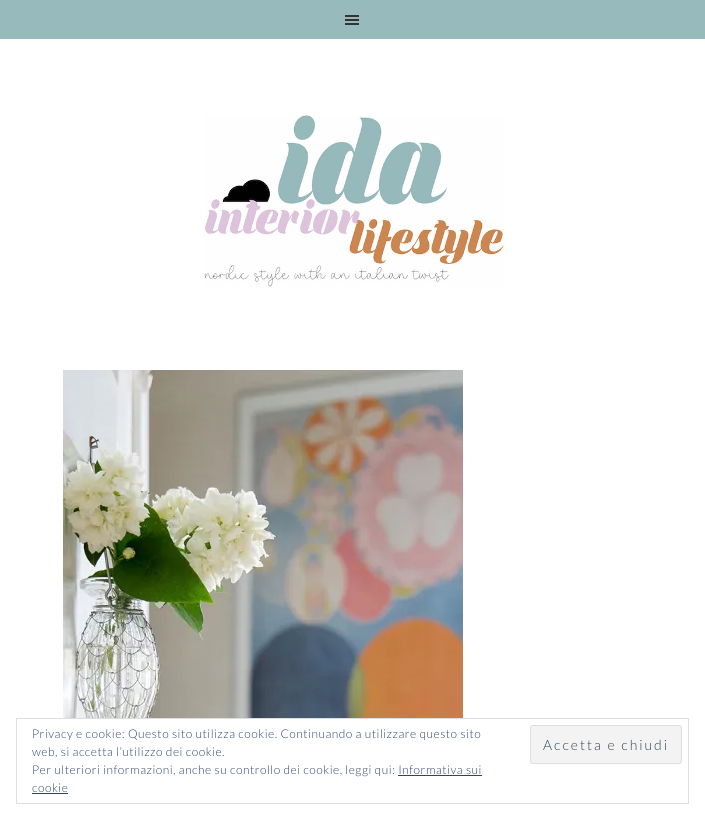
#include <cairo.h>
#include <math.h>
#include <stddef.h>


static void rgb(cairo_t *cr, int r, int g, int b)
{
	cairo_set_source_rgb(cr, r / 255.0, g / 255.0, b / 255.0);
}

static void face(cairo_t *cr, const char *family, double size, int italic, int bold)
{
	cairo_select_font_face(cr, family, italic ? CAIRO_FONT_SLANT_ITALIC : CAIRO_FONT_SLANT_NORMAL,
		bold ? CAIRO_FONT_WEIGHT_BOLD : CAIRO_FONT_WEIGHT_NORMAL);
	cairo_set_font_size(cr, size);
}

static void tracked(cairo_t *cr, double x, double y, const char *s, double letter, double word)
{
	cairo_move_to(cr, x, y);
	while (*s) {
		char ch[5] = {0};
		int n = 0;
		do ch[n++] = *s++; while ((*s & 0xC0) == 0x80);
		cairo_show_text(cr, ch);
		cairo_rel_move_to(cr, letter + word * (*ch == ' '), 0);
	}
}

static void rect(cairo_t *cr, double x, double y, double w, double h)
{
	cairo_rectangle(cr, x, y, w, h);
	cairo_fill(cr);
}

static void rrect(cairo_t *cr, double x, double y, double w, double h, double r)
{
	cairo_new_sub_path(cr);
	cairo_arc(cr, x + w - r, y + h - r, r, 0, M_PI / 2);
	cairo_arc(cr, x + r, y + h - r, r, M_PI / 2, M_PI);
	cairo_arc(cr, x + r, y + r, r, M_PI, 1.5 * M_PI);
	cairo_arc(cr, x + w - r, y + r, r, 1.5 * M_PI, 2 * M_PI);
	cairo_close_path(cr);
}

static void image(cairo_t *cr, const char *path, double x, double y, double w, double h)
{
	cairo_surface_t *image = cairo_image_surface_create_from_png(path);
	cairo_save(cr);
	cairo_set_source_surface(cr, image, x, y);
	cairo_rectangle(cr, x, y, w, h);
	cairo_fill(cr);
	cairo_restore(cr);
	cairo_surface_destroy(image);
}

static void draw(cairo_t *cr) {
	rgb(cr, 255, 255, 255);
	cairo_paint(cr);
	rgb(cr, 151, 186, 188);
	rect(cr, 0, 0, 705, 39);
	image(cr, "image0.png", 345, 15, 14, 10);
	image(cr, "image1.png", 204, 115, 301, 172);
	image(cr, "image2.png", 63, 370, 400, 348);
	cairo_rectangle(cr, 16.5, 718.5, 672, 85);
	rgb(cr, 222, 222, 222);
	cairo_set_line_width(cr, 1);
	cairo_stroke(cr);
	face(cr, "Lato Light", 12, 0, 0);
	rgb(cr, 46, 68, 103);
	tracked(cr, 32, 738, "Privacy e cookie: Questo sito utilizza cookie. Continuando a utilizzare questo sito", 0.5, 0);
	rgb(cr, 243, 243, 243);
	rrect(cr, 530.5, 725.5, 151, 38, 2.5);
	cairo_fill_preserve(cr);
	rgb(cr, 222, 222, 222);
	cairo_stroke(cr);
	face(cr, "Lato Light", 14, 0, 0);
	rgb(cr, 46, 68, 83);
	tracked(cr, 543, 750, "Accetta e chiudi", 2, 0);
	face(cr, "Lato Light", 12, 0, 0);
	rgb(cr, 46, 68, 103);
	tracked(cr, 32, 756, "web, si accetta l’utilizzo dei cookie.", 0.5, 0);
	tracked(cr, 32, 774, "Per ulteriori informazioni, anche su controllo dei cookie, leggi qui: Informativa sui", 0.5, 0);
	tracked(cr, 32, 792, "cookie", 0.5, 0);
	rect(cr, 398, 775, 84, 1);
	rect(cr, 32, 793, 36, 1);
}

int main(void) {
	cairo_surface_t *surface = cairo_image_surface_create(CAIRO_FORMAT_RGB24, 705, 820);
	cairo_t *cr = cairo_create(surface);
	cairo_font_options_t *options = cairo_font_options_create();
	cairo_font_options_set_hint_metrics(options, CAIRO_HINT_METRICS_OFF);
	cairo_font_options_set_hint_style(options, CAIRO_HINT_STYLE_NONE);
	cairo_set_font_options(cr, options);
	cairo_set_miter_limit(cr, 4);
	draw(cr);
	cairo_surface_write_to_png(surface, "render.png");
	cairo_font_options_destroy(options);
	cairo_destroy(cr);
	cairo_surface_destroy(surface);
	return 0;
}
